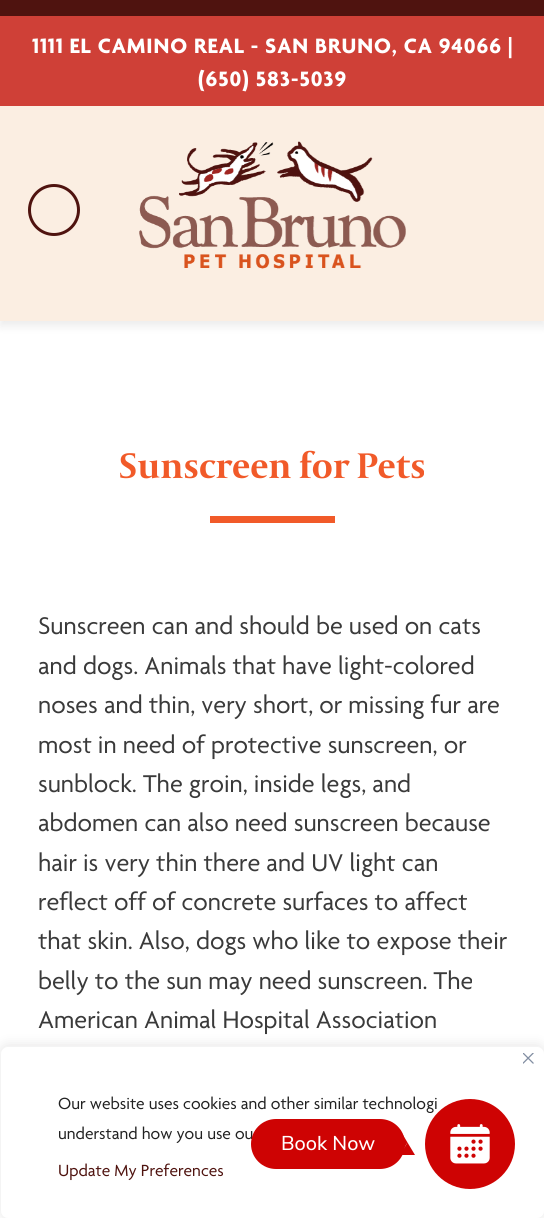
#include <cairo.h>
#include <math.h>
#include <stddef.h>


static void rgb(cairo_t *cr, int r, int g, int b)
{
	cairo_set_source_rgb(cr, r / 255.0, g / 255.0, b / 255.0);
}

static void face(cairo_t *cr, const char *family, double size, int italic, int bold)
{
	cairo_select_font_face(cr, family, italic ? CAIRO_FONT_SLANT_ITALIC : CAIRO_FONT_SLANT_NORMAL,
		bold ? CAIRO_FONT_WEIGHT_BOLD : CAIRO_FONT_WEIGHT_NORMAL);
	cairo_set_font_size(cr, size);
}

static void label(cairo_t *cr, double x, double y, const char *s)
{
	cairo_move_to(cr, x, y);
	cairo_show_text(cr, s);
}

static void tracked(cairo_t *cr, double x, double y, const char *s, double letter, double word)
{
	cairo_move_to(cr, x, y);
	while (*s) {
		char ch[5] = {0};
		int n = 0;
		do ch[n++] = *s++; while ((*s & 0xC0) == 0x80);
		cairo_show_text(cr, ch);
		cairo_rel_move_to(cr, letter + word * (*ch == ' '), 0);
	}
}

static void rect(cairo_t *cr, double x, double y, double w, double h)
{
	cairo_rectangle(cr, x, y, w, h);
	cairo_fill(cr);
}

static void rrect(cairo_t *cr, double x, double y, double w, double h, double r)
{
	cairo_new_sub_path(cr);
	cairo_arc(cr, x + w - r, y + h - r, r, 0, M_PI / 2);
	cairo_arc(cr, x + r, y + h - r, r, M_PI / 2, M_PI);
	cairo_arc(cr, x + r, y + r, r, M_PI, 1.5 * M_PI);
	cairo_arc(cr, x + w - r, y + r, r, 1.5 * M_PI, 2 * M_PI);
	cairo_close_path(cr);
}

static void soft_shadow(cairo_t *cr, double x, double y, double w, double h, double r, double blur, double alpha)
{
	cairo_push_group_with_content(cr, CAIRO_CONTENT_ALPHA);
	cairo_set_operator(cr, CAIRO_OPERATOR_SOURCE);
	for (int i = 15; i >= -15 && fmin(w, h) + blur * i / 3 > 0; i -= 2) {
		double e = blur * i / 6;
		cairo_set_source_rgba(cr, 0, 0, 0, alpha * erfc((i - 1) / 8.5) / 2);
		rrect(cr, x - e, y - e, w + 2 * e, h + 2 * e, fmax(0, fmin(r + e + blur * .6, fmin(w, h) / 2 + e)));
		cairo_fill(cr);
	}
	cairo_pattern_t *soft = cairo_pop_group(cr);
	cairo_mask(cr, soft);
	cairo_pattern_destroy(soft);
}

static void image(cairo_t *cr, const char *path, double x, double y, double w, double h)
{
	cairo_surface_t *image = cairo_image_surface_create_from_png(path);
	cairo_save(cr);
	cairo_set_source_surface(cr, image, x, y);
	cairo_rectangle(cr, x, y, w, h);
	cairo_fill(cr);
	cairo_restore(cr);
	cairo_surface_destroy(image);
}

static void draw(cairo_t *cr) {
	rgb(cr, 255, 255, 255);
	cairo_paint(cr);
	rgb(cr, 0, 0, 0);
	soft_shadow(cr, 0, 5, 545, 321, 0, 5, 0.08);
	rgb(cr, 251, 238, 226);
	rect(cr, 0, 106, 544, 215);
	rgb(cr, 79, 19, 15);
	rect(cr, 0, 0, 544, 16);
	rgb(cr, 207, 64, 55);
	rect(cr, 0, 16, 544, 90);
	face(cr, "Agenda", 22.5, 0, 1);
	rgb(cr, 255, 255, 255);
	tracked(cr, 32, 53, "1111 EL CAMINO REAL - SAN BRUNO, CA 94066 |", 0.9, 0);
	tracked(cr, 198, 86, "(650) 583-5039", 0.9, 0);
	cairo_new_path(cr);
	cairo_arc(cr, 54, 210, 24.5, 0, 2 * M_PI);
	rgb(cr, 79, 19, 15);
	cairo_set_line_width(cr, 3);
	cairo_stroke(cr);
	image(cr, "image0.png", 139, 141, 267, 128);
	face(cr, "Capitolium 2", 37.5, 0, 1);
	rgb(cr, 241, 90, 41);
	label(cr, 119, 478, "Sunscreen for Pets");
	rect(cr, 210, 516, 125, 7);
	face(cr, "Agenda", 26.25, 0, 0);
	rgb(cr, 58, 58, 58);
	label(cr, 38, 634, "Sunscreen can and should be used on cats");
	label(cr, 38, 674, "and dogs. Animals that have light-colored");
	label(cr, 38, 713, "noses and thin, very short, or missing fur are");
	label(cr, 38, 753, "most in need of protective sunscreen, or");
	label(cr, 38, 792, "sunblock. The groin, inside legs, and");
	label(cr, 38, 831, "abdomen can also need sunscreen because");
	label(cr, 38, 871, "hair is very thin there and UV light can");
	label(cr, 38, 910, "reflect off of concrete surfaces to affect");
	label(cr, 38, 949, "that skin. Also, dogs who like to expose their");
	label(cr, 38, 989, "belly to the sun may need sunscreen. The");
	label(cr, 38, 1028, "American Animal Hospital Association");
	rgb(cr, 172, 171, 171);
	soft_shadow(cr, 0, 1045, 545, 173, 8, 6, 0.3);
	rgb(cr, 255, 255, 255);
	rrect(cr, 0.5, 1046.5, 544, 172, 7.5);
	cairo_fill_preserve(cr);
	rgb(cr, 244, 244, 244);
	cairo_set_line_width(cr, 1);
	cairo_stroke(cr);
	image(cr, "image1.png", 523, 1053, 11, 11);
	face(cr, "Agenda", 17.5, 0, 0);
	rgb(cr, 33, 33, 33);
	label(cr, 58, 1109, "Our website uses cookies and other similar technologi");
	label(cr, 58, 1139, "understand how you use ou");
	rgb(cr, 79, 19, 15);
	label(cr, 58, 1176, "Update My Preferences");
	rgb(cr, 206, 3, 3);
	rrect(cr, 251, 1119, 154, 50, 25);
	cairo_fill(cr);
	face(cr, "Nunito Sans Medium", 20, 0, 0);
	rgb(cr, 255, 255, 255);
	label(cr, 281, 1150, "Book Now");
	rgb(cr, 206, 3, 3);
	cairo_new_path(cr);
	cairo_move_to(cr, 415, 1155);
	cairo_line_to(cr, 400, 1155);
	cairo_line_to(cr, 407.5, 1142.5);
	cairo_close_path(cr);
	cairo_fill(cr);
	cairo_new_path(cr);
	cairo_move_to(cr, 400, 1155);
	cairo_line_to(cr, 400, 1130);
	cairo_line_to(cr, 407.5, 1142.5);
	cairo_close_path(cr);
	cairo_fill(cr);
	cairo_arc(cr, 470, 1144, 45, 0, 2 * M_PI);
	cairo_fill(cr);
	image(cr, "image2.png", 450, 1124, 40, 40);
}

int main(void) {
	cairo_surface_t *surface = cairo_image_surface_create(CAIRO_FORMAT_RGB24, 544, 1218);
	cairo_t *cr = cairo_create(surface);
	cairo_font_options_t *options = cairo_font_options_create();
	cairo_font_options_set_hint_metrics(options, CAIRO_HINT_METRICS_OFF);
	cairo_font_options_set_hint_style(options, CAIRO_HINT_STYLE_NONE);
	cairo_set_font_options(cr, options);
	cairo_set_miter_limit(cr, 4);
	draw(cr);
	cairo_surface_write_to_png(surface, "render.png");
	cairo_font_options_destroy(options);
	cairo_destroy(cr);
	cairo_surface_destroy(surface);
	return 0;
}
